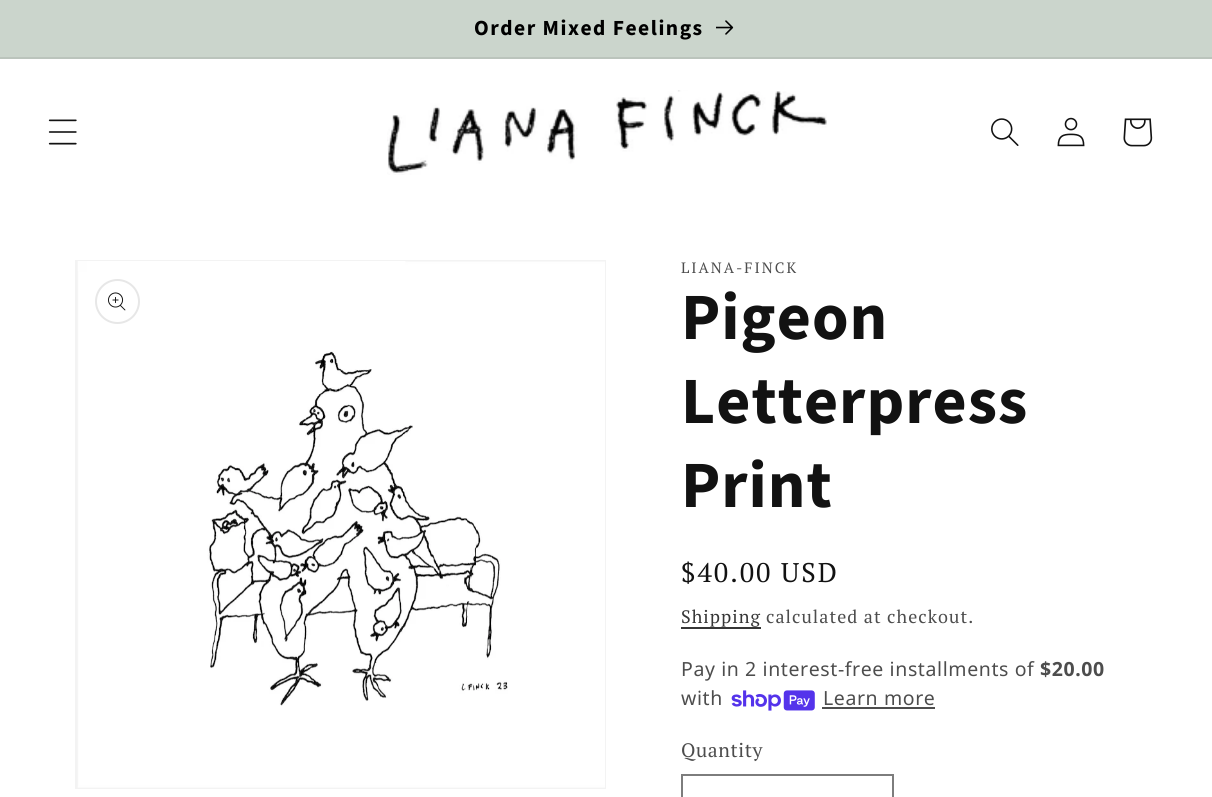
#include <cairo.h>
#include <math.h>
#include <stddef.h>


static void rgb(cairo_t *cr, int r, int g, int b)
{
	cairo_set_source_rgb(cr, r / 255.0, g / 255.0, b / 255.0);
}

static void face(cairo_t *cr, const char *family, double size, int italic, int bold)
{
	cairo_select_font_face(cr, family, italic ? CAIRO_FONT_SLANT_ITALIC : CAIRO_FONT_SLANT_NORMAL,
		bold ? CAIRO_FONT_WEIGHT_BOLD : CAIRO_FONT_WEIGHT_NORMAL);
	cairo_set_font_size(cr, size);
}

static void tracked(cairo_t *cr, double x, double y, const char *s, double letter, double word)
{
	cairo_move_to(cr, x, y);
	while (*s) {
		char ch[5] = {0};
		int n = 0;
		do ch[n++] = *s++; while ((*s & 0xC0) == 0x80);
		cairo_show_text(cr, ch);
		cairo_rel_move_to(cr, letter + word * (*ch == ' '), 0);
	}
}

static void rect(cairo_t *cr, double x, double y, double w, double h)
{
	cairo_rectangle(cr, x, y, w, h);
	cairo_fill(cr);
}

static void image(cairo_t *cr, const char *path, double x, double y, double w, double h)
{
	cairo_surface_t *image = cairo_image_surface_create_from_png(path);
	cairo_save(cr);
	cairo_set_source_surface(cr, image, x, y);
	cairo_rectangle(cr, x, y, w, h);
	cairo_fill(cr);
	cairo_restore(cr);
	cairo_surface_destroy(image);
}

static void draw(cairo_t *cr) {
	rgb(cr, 255, 255, 255);
	cairo_paint(cr);
	rgb(cr, 203, 213, 204);
	rect(cr, 0, 0, 1212, 57);
	rgb(cr, 187, 196, 188);
	rect(cr, 0, 57, 1212, 2);
	face(cr, "Source Sans Pro", 21.5, 0, 1);
	rgb(cr, 0, 0, 0);
	tracked(cr, 474, 35, "Order Mixed Feelings", 1.5, 0);
	image(cr, "image0.png", 716, 20, 18, 15);
	image(cr, "image1.png", 48, 119, 29, 26);
	image(cr, "image2.png", 387, 90, 440, 85);
	image(cr, "image3.png", 991, 118, 28, 28);
	image(cr, "image4.png", 1057, 117, 28, 30);
	image(cr, "image5.png", 1123, 118, 30, 29);
	cairo_rectangle(cr, 76, 261, 529, 527);
	rgb(cr, 243, 243, 243);
	cairo_stroke(cr);
	image(cr, "image6.png", 77, 261, 528, 527);
	cairo_arc(cr, 117.5, 301.5, 21.5, 0, 2 * M_PI);
	rgb(cr, 231, 231, 231);
	cairo_stroke(cr);
	image(cr, "image7.png", 108, 292, 18, 19);
	face(cr, "PT Serif", 15, 0, 0);
	rgb(cr, 77, 77, 77);
	tracked(cr, 681, 273, "LIANA-FINCK", 2, 0);
	face(cr, "Source Sans Pro", 66, 0, 1);
	rgb(cr, 18, 18, 18);
	tracked(cr, 681, 339, "Pigeon", 1, 0);
	tracked(cr, 681, 423, "Letterpress", 1, 0);
	tracked(cr, 681, 507, "Print", 1, 0);
	face(cr, "PT Serif", 27, 0, 0);
	tracked(cr, 681, 582, "$40.00 USD", 2, 0);
	face(cr, "PT Serif", 18, 0, 0);
	rgb(cr, 54, 54, 54);
	tracked(cr, 681, 623, "Shipping", 1.05, 0);
	rect(cr, 681, 627, 80, 2);
	rgb(cr, 77, 77, 77);
	tracked(cr, 766, 623, "calculated at checkout.", 1.05, 0);
	face(cr, "Noto Sans", 19.5, 0, 0);
	tracked(cr, 681, 676, "Pay in 2 interest-free installments of", 0.6, 0);
	face(cr, "Noto Sans", 19.5, 0, 1);
	tracked(cr, 1040, 676, "$20.00", 0.6, 0);
	face(cr, "Noto Sans", 19.5, 0, 0);
	tracked(cr, 681, 705, "with", 0.6, 0);
	image(cr, "image8.png", 731, 690, 84, 21);
	tracked(cr, 823, 705, "Learn more", 0.6, 0);
	rect(cr, 822, 707, 113, 2);
	face(cr, "PT Serif", 19.5, 0, 0);
	tracked(cr, 681, 757, "Quantity", 0.6, 0);
	cairo_rectangle(cr, 682, 775, 211, 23);
	rgb(cr, 125, 125, 125);
	cairo_stroke(cr);
}

int main(void) {
	cairo_surface_t *surface = cairo_image_surface_create(CAIRO_FORMAT_RGB24, 1212, 797);
	cairo_t *cr = cairo_create(surface);
	cairo_font_options_t *options = cairo_font_options_create();
	cairo_font_options_set_hint_metrics(options, CAIRO_HINT_METRICS_OFF);
	cairo_font_options_set_hint_style(options, CAIRO_HINT_STYLE_NONE);
	cairo_set_font_options(cr, options);
	cairo_set_miter_limit(cr, 4);
	draw(cr);
	cairo_surface_write_to_png(surface, "render.png");
	cairo_font_options_destroy(options);
	cairo_destroy(cr);
	cairo_surface_destroy(surface);
	return 0;
}
